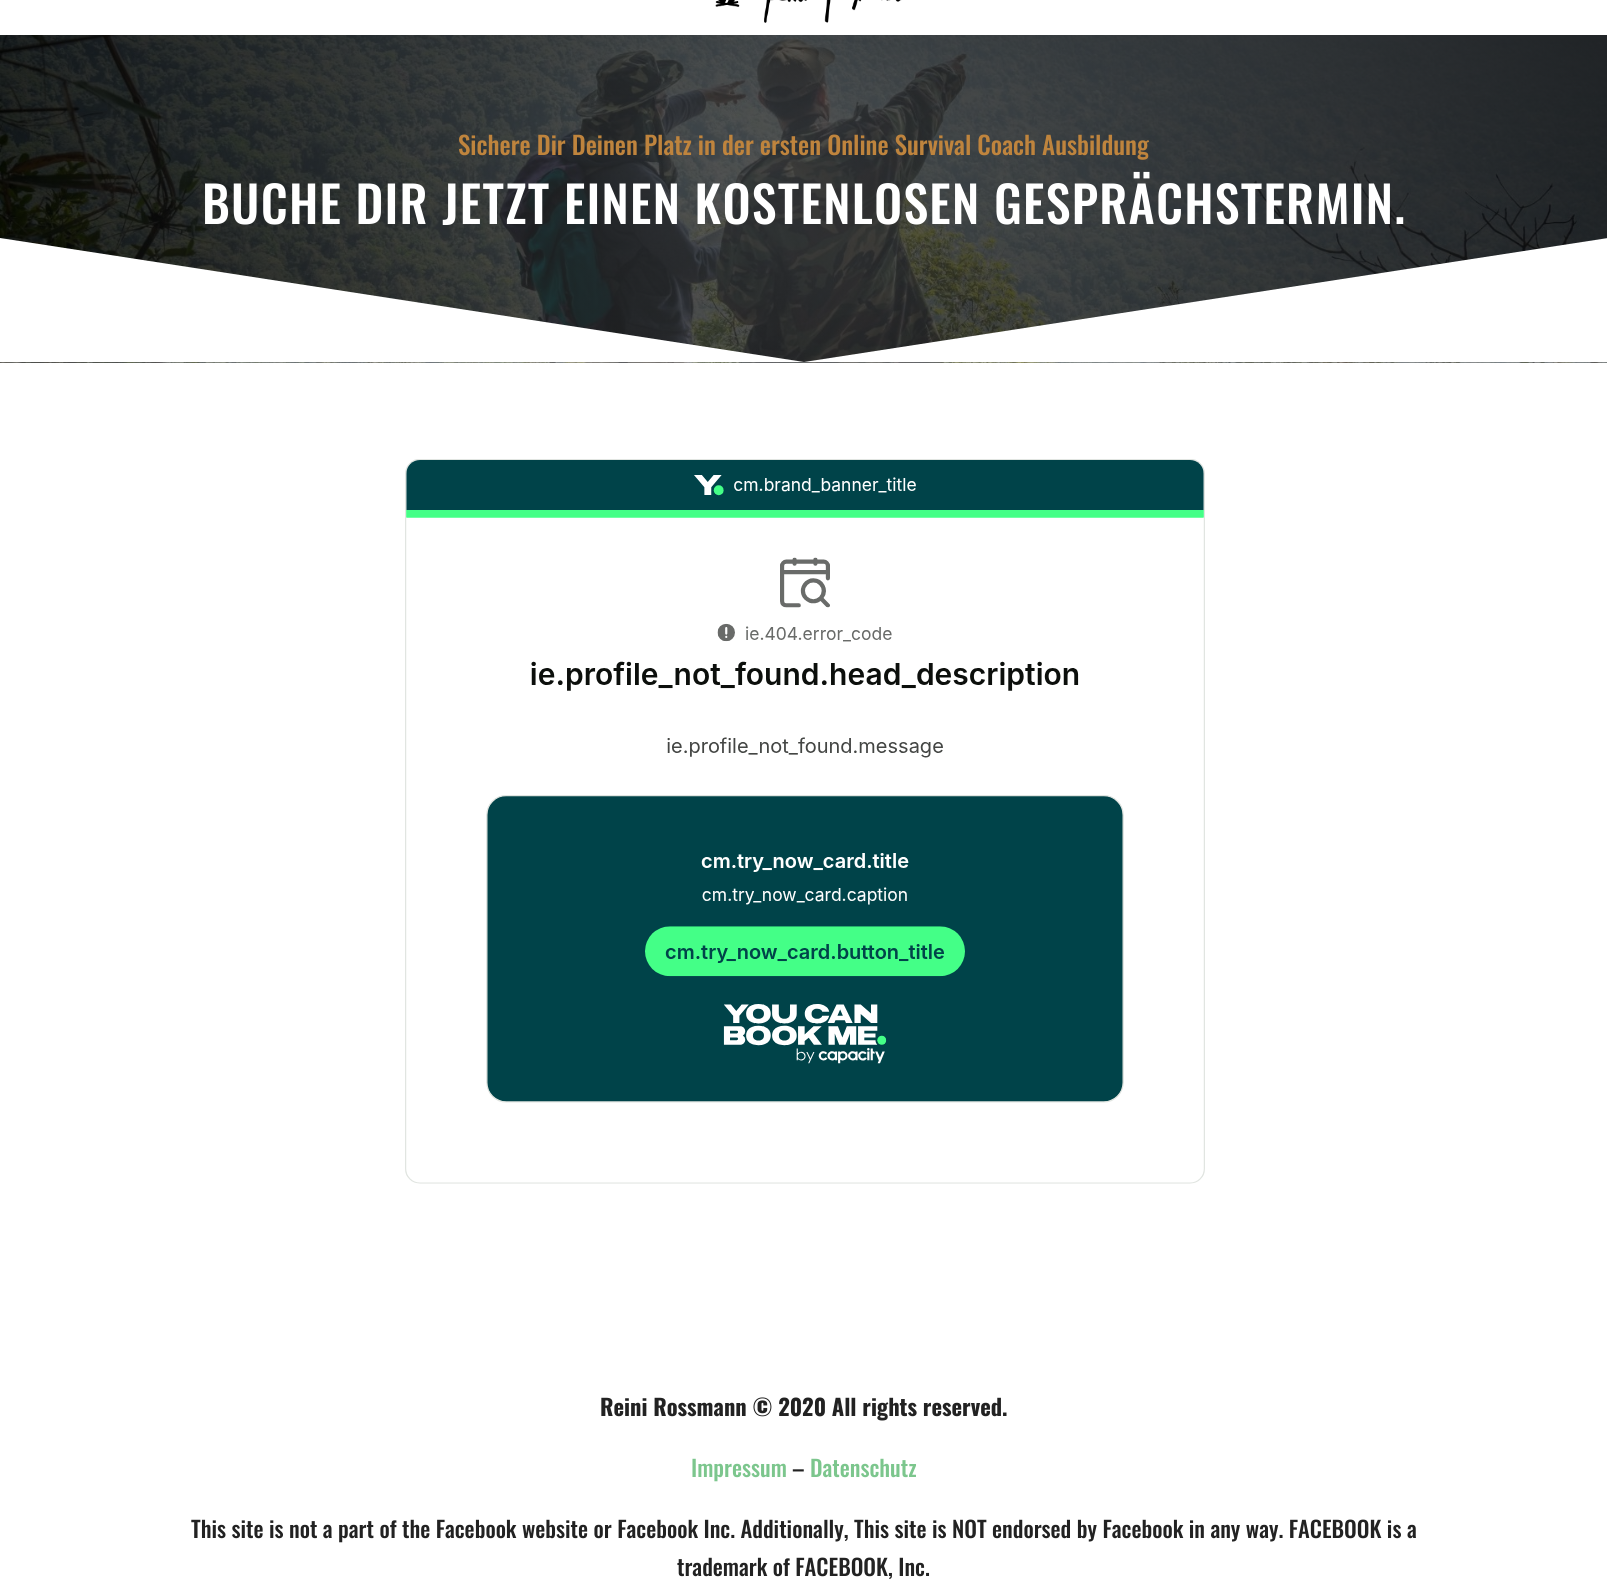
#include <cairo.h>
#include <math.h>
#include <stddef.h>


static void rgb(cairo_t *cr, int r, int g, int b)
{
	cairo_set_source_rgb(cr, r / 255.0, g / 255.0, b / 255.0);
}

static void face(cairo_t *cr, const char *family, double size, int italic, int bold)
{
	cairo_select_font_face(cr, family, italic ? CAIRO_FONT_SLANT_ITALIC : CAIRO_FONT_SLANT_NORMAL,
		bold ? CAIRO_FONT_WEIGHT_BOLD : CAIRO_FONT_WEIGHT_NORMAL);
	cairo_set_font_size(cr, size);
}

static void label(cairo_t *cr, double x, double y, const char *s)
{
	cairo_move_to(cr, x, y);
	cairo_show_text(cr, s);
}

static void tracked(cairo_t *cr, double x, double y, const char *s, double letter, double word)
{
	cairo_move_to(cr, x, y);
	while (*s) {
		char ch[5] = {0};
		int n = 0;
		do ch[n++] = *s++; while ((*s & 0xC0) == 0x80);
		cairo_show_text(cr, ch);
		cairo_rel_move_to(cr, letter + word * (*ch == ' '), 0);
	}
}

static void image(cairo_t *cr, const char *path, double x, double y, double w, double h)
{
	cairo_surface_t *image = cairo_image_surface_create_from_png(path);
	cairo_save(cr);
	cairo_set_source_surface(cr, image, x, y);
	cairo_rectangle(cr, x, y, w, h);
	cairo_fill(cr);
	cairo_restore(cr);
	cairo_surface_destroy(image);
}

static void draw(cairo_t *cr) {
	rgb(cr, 255, 255, 255);
	cairo_paint(cr);
	image(cr, "image0.png", 715, 0, 187, 23);
	image(cr, "image1.png", 0, 35, 1607, 328);
	face(cr, "Oswald Medium", 25, 0, 0);
	rgb(cr, 191, 132, 61);
	label(cr, 458, 155, "Sichere Dir Deinen Platz in der ersten Online Survival Coach Ausbildung");
	face(cr, "Oswald Medium", 50, 0, 0);
	rgb(cr, 255, 255, 255);
	tracked(cr, 202, 224, "BUCHE DIR JETZT EINEN KOSTENLOSEN GESPRÄCHSTERMIN.", 1.25, 0);
	cairo_new_path(cr);
	cairo_move_to(cr, 804, 362);
	cairo_line_to(cr, 0, 238);
	cairo_line_to(cr, 0, 362);
	cairo_line_to(cr, 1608, 362);
	cairo_line_to(cr, 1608, 238);
	cairo_close_path(cr);
	cairo_fill(cr);
	image(cr, "image2.png", 405, 459, 800, 725);
	face(cr, "Oswald", 22.5, 0, 1);
	rgb(cr, 34, 34, 34);
	label(cr, 600, 1416, "Reini Rossmann © 2020 All rights reserved.");
	face(cr, "Oswald Medium", 22.5, 0, 0);
	rgb(cr, 124, 198, 141);
	label(cr, 691, 1477, "Impressum");
	rgb(cr, 34, 34, 34);
	label(cr, 792, 1477, "–");
	rgb(cr, 124, 198, 141);
	label(cr, 810, 1477, "Datenschutz");
	rgb(cr, 34, 34, 34);
	label(cr, 191, 1538, "This site is not a part of the Facebook website or Facebook Inc. Additionally, This site is NOT endorsed by Facebook in any way. FACEBOOK is a");
	label(cr, 677, 1576, "trademark of FACEBOOK, Inc.");
}

int main(void) {
	cairo_surface_t *surface = cairo_image_surface_create(CAIRO_FORMAT_RGB24, 1607, 1581);
	cairo_t *cr = cairo_create(surface);
	cairo_font_options_t *options = cairo_font_options_create();
	cairo_font_options_set_hint_metrics(options, CAIRO_HINT_METRICS_OFF);
	cairo_font_options_set_hint_style(options, CAIRO_HINT_STYLE_NONE);
	cairo_set_font_options(cr, options);
	cairo_set_miter_limit(cr, 4);
	draw(cr);
	cairo_surface_write_to_png(surface, "render.png");
	cairo_font_options_destroy(options);
	cairo_destroy(cr);
	cairo_surface_destroy(surface);
	return 0;
}
